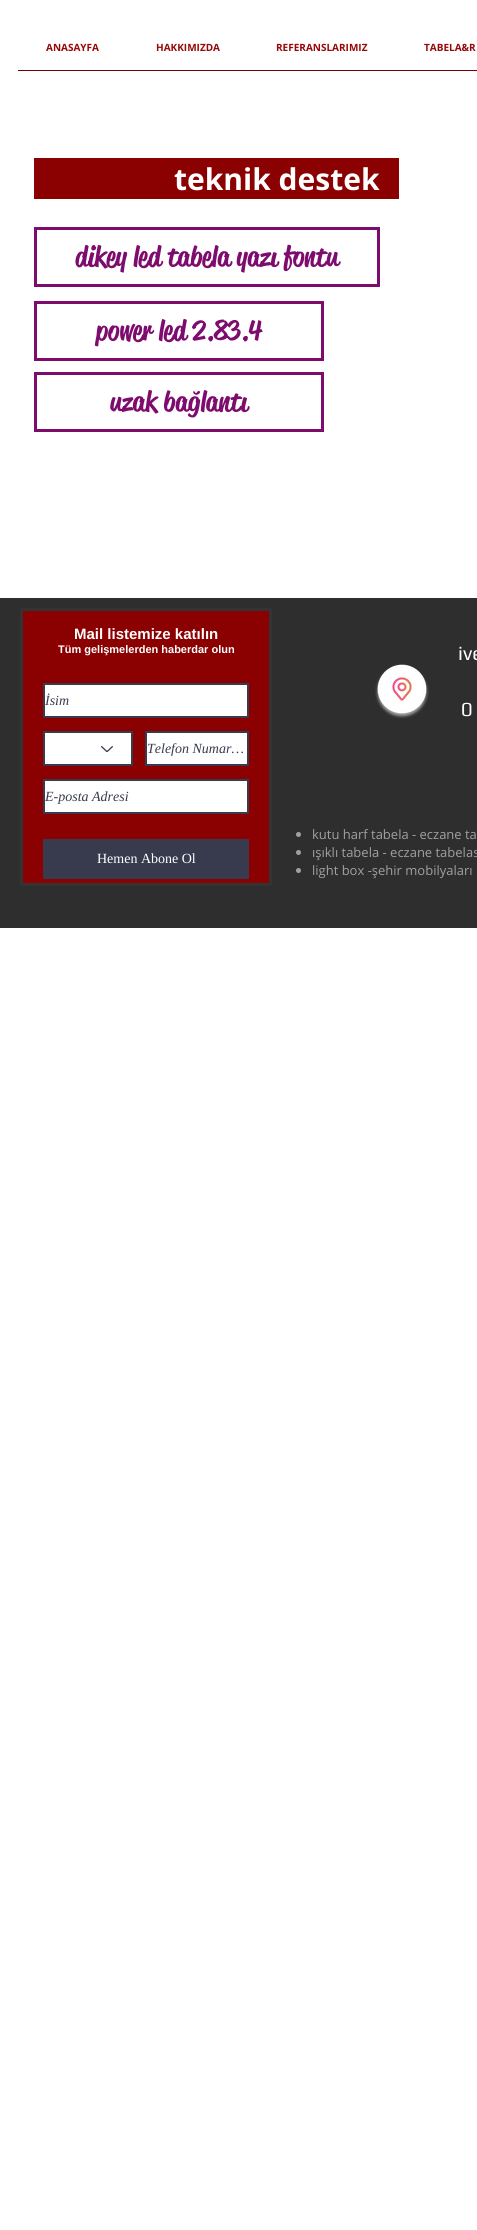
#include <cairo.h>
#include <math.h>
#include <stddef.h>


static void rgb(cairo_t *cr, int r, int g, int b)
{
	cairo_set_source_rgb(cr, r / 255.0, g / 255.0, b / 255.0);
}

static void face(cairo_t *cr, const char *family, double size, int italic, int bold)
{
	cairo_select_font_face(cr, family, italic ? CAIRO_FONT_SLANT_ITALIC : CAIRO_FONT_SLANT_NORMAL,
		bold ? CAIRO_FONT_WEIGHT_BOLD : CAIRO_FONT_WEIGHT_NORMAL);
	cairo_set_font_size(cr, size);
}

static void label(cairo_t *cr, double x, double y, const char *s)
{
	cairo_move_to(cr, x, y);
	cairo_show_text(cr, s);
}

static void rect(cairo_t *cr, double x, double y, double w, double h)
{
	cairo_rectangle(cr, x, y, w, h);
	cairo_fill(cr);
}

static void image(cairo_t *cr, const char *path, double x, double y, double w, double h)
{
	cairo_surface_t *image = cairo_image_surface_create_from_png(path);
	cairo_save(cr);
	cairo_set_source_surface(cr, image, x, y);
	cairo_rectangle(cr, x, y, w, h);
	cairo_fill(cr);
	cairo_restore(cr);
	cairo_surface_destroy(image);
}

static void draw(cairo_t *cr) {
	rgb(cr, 255, 255, 255);
	cairo_paint(cr);
	face(cr, "Open Sans", 10, 0, 1);
	rgb(cr, 151, 8, 8);
	label(cr, 46, 51, "ANASAYFA");
	label(cr, 156, 51, "HAKKIMIZDA");
	label(cr, 276, 51, "REFERANSLARIMIZ");
	label(cr, 424, 51, "TABELA&R");
	rgb(cr, 110, 2, 2);
	rect(cr, 18, 70, 459, 1);
	rgb(cr, 139, 0, 0);
	rect(cr, 34, 158, 365, 41);
	face(cr, "Open Sans", 30, 0, 1);
	rgb(cr, 255, 255, 255);
	label(cr, 174, 190, "teknik destek");
	cairo_rectangle(cr, 35.5, 228.5, 343, 57);
	rgb(cr, 126, 12, 110);
	cairo_set_line_width(cr, 3);
	cairo_stroke(cr);
	face(cr, "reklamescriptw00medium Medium", 28, 0, 0);
	label(cr, 75, 266, "dikey led tabela yazı fontu");
	cairo_rectangle(cr, 35.5, 302.5, 287, 57);
	cairo_stroke(cr);
	label(cr, 96, 340, "power led 2.83.4");
	cairo_rectangle(cr, 35.5, 373.5, 287, 57);
	cairo_stroke(cr);
	label(cr, 110, 411, "uzak bağlantı");
	rgb(cr, 47, 46, 46);
	rect(cr, 0, 598, 477, 330);
	rgb(cr, 139, 0, 0);
	cairo_rectangle(cr, 21.5, 609.5, 249, 275);
	cairo_fill_preserve(cr);
	rgb(cr, 51, 51, 51);
	cairo_stroke(cr);
	face(cr, "Liberation Sans", 15, 0, 1);
	rgb(cr, 255, 255, 255);
	label(cr, 74, 639, "Mail listemize katılın");
	face(cr, "Liberation Sans", 11, 0, 1);
	label(cr, 58, 653, "Tüm gelişmelerden haberdar olun");
	cairo_rectangle(cr, 44, 684, 204, 33);
	cairo_fill_preserve(cr);
	rgb(cr, 55, 59, 77);
	cairo_set_line_width(cr, 2);
	cairo_stroke(cr);
	face(cr, "Liberation Serif", 14, 1, 0);
	label(cr, 45, 705, "İsim");
	rgb(cr, 255, 255, 255);
	cairo_rectangle(cr, 44, 732, 88, 33);
	cairo_fill_preserve(cr);
	rgb(cr, 55, 59, 77);
	cairo_stroke(cr);
	image(cr, "image0.png", 101, 746, 12, 6);
	rgb(cr, 255, 255, 255);
	cairo_rectangle(cr, 146, 732, 102, 33);
	cairo_fill_preserve(cr);
	rgb(cr, 55, 59, 77);
	cairo_stroke(cr);
	label(cr, 147, 753, "Telefon Numar…");
	rgb(cr, 255, 255, 255);
	cairo_rectangle(cr, 44, 780, 204, 33);
	cairo_fill_preserve(cr);
	rgb(cr, 55, 59, 77);
	cairo_stroke(cr);
	label(cr, 45, 801, "E-posta Adresi");
	rect(cr, 43, 839, 206, 40);
	face(cr, "Liberation Serif", 14, 0, 0);
	rgb(cr, 255, 255, 255);
	label(cr, 97, 863, "Hemen Abone Ol");
	image(cr, "image1.png", 375, 664, 54, 55);
	face(cr, "Play", 20, 0, 0);
	label(cr, 458, 660, "ive");
	label(cr, 461, 716, "0");
	rgb(cr, 160, 160, 159);
	cairo_new_path(cr);
	cairo_arc(cr, 298.5, 834.5, 2.5, 0, 2 * M_PI);
	cairo_fill(cr);
	face(cr, "Open Sans", 13, 0, 0);
	label(cr, 312, 839, "kutu harf tabela - eczane ta");
	cairo_new_path(cr);
	cairo_arc(cr, 298.5, 852.5, 2.5, 0, 2 * M_PI);
	cairo_fill(cr);
	label(cr, 312, 857, "ışıklı tabela - eczane tabelas");
	cairo_new_path(cr);
	cairo_arc(cr, 298.5, 870.5, 2.5, 0, 2 * M_PI);
	cairo_fill(cr);
	label(cr, 312, 875, "light box -şehir mobilyaları");
}

int main(void) {
	cairo_surface_t *surface = cairo_image_surface_create(CAIRO_FORMAT_RGB24, 477, 2230);
	cairo_t *cr = cairo_create(surface);
	cairo_font_options_t *options = cairo_font_options_create();
	cairo_font_options_set_hint_metrics(options, CAIRO_HINT_METRICS_OFF);
	cairo_font_options_set_hint_style(options, CAIRO_HINT_STYLE_NONE);
	cairo_set_font_options(cr, options);
	cairo_set_miter_limit(cr, 4);
	draw(cr);
	cairo_surface_write_to_png(surface, "render.png");
	cairo_font_options_destroy(options);
	cairo_destroy(cr);
	cairo_surface_destroy(surface);
	return 0;
}
